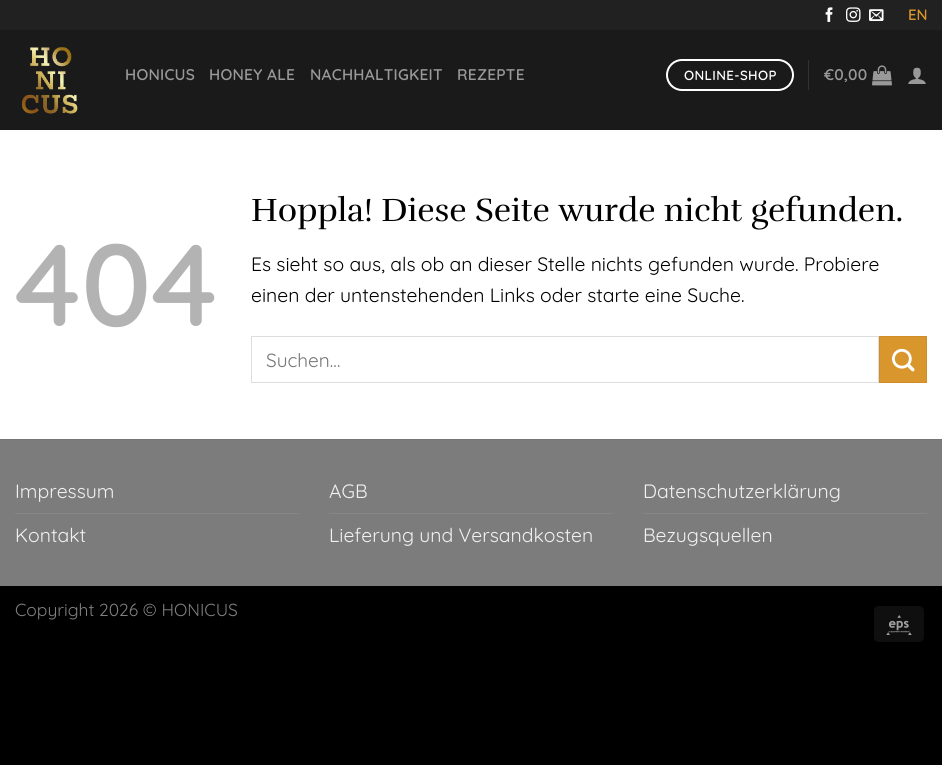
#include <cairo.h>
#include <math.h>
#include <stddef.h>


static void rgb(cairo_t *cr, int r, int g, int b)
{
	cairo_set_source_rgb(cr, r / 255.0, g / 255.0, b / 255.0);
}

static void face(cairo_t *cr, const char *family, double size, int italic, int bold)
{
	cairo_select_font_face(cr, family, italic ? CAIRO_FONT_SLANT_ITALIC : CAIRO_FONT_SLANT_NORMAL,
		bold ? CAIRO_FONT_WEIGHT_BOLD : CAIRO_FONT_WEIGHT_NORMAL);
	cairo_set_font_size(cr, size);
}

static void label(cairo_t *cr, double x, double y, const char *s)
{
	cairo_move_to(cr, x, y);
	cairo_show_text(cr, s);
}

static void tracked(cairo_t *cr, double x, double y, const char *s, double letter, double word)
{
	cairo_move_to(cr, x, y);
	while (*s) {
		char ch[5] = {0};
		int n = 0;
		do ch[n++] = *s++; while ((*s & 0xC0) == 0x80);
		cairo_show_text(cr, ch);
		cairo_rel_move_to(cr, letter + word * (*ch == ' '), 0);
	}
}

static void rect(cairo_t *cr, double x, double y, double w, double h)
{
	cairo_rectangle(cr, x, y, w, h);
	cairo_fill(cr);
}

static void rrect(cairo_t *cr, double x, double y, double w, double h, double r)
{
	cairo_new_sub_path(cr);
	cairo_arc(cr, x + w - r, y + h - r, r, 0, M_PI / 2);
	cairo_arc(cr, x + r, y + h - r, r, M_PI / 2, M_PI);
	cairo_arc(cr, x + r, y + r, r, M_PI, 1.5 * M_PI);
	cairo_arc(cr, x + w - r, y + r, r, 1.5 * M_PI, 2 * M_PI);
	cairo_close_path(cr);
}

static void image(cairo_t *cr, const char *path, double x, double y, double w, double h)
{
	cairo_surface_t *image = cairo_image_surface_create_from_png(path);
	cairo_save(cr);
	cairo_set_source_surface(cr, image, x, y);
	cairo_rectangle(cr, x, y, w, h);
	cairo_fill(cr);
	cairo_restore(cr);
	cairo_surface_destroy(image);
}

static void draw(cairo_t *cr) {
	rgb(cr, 0, 0, 0);
	cairo_paint(cr);
	rgb(cr, 255, 255, 255);
	rect(cr, 0, 130, 942, 309);
	rgb(cr, 33, 33, 33);
	rect(cr, 0, 0, 942, 30);
	image(cr, "image0.png", 825, 7, 8, 15);
	image(cr, "image1.png", 846, 7, 15, 15);
	image(cr, "image2.png", 869, 9, 15, 12);
	face(cr, "Quicksand SemiBold", 15, 0, 0);
	rgb(cr, 217, 150, 44);
	label(cr, 908, 20, "EN");
	rgb(cr, 26, 26, 26);
	rect(cr, 0, 30, 942, 100);
	image(cr, "image3.png", 21, 47, 57, 67);
	face(cr, "Quicksand SemiBold", 15.5, 0, 0);
	rgb(cr, 153, 153, 153);
	tracked(cr, 125, 80, "HONICUS", 0.25, 0);
	tracked(cr, 209, 80, "HONEY ALE", 0.25, 0);
	tracked(cr, 310, 80, "NACHHALTIGKEIT", 0.25, 0);
	tracked(cr, 457, 80, "REZEPTE", 0.25, 0);
	rrect(cr, 667, 60, 126, 30, 15);
	rgb(cr, 255, 255, 255);
	cairo_stroke(cr);
	face(cr, "Quicksand SemiBold", 13.25, 0, 0);
	tracked(cr, 684, 80, "ONLINE-SHOP", 0.4, 0);
	rgb(cr, 49, 49, 49);
	rect(cr, 808, 60, 1, 30);
	face(cr, "Quicksand SemiBold", 15.5, 0, 0);
	rgb(cr, 153, 153, 153);
	tracked(cr, 824, 80, "€0,00", 0.25, 0);
	image(cr, "image4.png", 872, 65, 20, 21);
	image(cr, "image5.png", 908, 67, 18, 17);
	face(cr, "Quicksand SemiBold", 116, 0, 0);
	rgb(cr, 179, 179, 179);
	label(cr, 15, 326, "404");
	face(cr, "Rufina", 32.9, 0, 0);
	rgb(cr, 0, 0, 0);
	label(cr, 251, 221, "Hoppla! Diese Seite wurde nicht gefunden.");
	face(cr, "Quicksand", 19.35, 0, 0);
	label(cr, 251, 271, "Es sieht so aus, als ob an dieser Stelle nichts gefunden wurde. Probiere");
	label(cr, 251, 302, "einen der untenstehenden Links oder starte eine Suche.");
	cairo_rectangle(cr, 251.5, 336.5, 627, 46);
	rgb(cr, 221, 221, 221);
	cairo_set_line_width(cr, 1);
	cairo_stroke(cr);
	face(cr, "Quicksand", 19, 0, 0);
	rgb(cr, 117, 117, 117);
	label(cr, 266, 367, "Suchen…");
	rgb(cr, 217, 150, 44);
	cairo_rectangle(cr, 879.5, 336.5, 47, 46);
	cairo_fill_preserve(cr);
	rgb(cr, 206, 143, 42);
	cairo_stroke(cr);
	image(cr, "image6.png", 892, 348, 23, 24);
	rgb(cr, 124, 124, 124);
	rect(cr, 0, 440, 942, 146);
	rgb(cr, 118, 118, 118);
	rect(cr, 0, 439, 942, 1);
	face(cr, "Quicksand", 19.35, 0, 0);
	rgb(cr, 241, 241, 241);
	label(cr, 15, 498, "Impressum");
	rgb(cr, 134, 134, 134);
	rect(cr, 15, 513, 284, 1);
	rgb(cr, 241, 241, 241);
	label(cr, 15, 542, "Kontakt");
	label(cr, 329, 498, "AGB");
	rgb(cr, 134, 134, 134);
	rect(cr, 329, 513, 284, 1);
	rgb(cr, 241, 241, 241);
	label(cr, 329, 542, "Lieferung und Versandkosten");
	label(cr, 643, 498, "Datenschutzerklärung");
	rgb(cr, 134, 134, 134);
	rect(cr, 643, 513, 284, 1);
	rgb(cr, 241, 241, 241);
	label(cr, 643, 542, "Bezugsquellen");
	face(cr, "Quicksand", 17.4, 0, 0);
	rgb(cr, 128, 128, 128);
	label(cr, 15, 616, "Copyright 2026 © HONICUS");
	rgb(cr, 15, 15, 15);
	rrect(cr, 874, 606, 50, 36, 5);
	cairo_fill(cr);
	image(cr, "image7.png", 886, 615, 26, 20);
}

int main(void) {
	cairo_surface_t *surface = cairo_image_surface_create(CAIRO_FORMAT_RGB24, 942, 765);
	cairo_t *cr = cairo_create(surface);
	cairo_font_options_t *options = cairo_font_options_create();
	cairo_font_options_set_hint_metrics(options, CAIRO_HINT_METRICS_OFF);
	cairo_font_options_set_hint_style(options, CAIRO_HINT_STYLE_NONE);
	cairo_set_font_options(cr, options);
	cairo_set_miter_limit(cr, 4);
	draw(cr);
	cairo_surface_write_to_png(surface, "render.png");
	cairo_font_options_destroy(options);
	cairo_destroy(cr);
	cairo_surface_destroy(surface);
	return 0;
}
